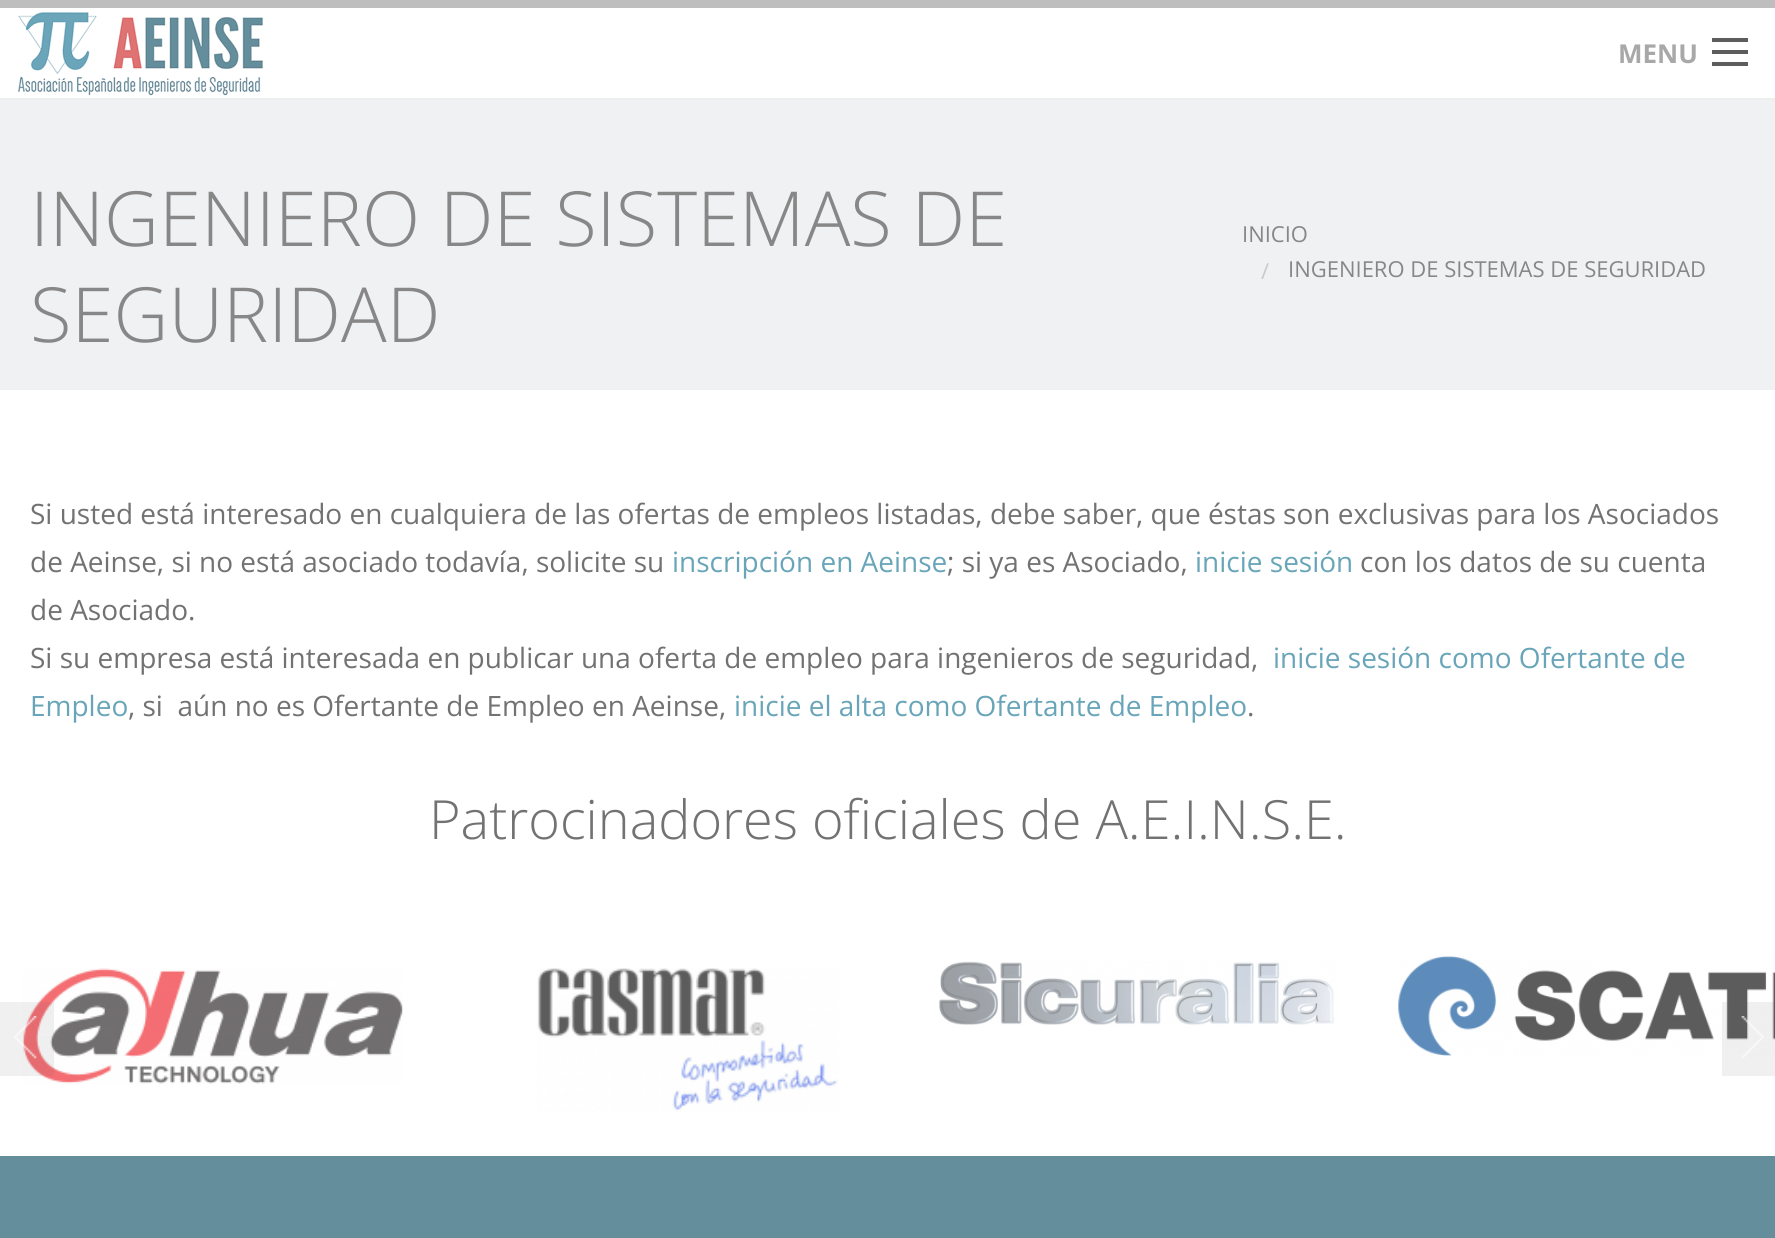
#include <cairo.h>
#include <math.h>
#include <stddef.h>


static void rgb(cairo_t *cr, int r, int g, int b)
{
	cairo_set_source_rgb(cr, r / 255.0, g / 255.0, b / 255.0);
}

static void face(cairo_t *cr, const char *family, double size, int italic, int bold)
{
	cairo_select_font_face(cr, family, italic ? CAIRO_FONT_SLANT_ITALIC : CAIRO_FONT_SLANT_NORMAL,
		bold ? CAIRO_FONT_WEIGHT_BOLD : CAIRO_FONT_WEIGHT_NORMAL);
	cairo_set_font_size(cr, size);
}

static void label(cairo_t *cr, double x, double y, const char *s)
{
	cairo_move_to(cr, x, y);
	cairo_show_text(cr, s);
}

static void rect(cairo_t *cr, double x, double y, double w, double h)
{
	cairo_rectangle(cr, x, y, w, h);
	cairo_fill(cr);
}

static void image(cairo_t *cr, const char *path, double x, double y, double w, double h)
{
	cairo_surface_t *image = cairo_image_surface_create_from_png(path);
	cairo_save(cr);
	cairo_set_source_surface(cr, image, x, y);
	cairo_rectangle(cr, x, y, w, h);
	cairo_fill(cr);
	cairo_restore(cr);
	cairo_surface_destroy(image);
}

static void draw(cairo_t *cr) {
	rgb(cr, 255, 255, 255);
	cairo_paint(cr);
	rgb(cr, 190, 190, 190);
	rect(cr, 0, 0, 1775, 8);
	image(cr, "image0.png", 18, 12, 245, 84);
	rgb(cr, 237, 238, 238);
	rect(cr, 0, 98, 1775, 2);
	rgb(cr, 92, 92, 92);
	rect(cr, 1712, 62, 36, 4);
	rect(cr, 1712, 50, 36, 4);
	rect(cr, 1712, 38, 36, 4);
	face(cr, "Open Sans", 26, 0, 1);
	rgb(cr, 168, 168, 168);
	label(cr, 1618, 63, "MENU");
	rgb(cr, 240, 241, 242);
	rect(cr, 0, 100, 1775, 290);
	face(cr, "Open Sans Light", 76, 0, 0);
	rgb(cr, 135, 135, 135);
	label(cr, 30, 246, "INGENIERO DE SISTEMAS DE");
	label(cr, 30, 342, "SEGURIDAD");
	face(cr, "Open Sans", 22, 0, 0);
	label(cr, 1242, 242, "INICIO");
	rgb(cr, 201, 201, 201);
	label(cr, 1261, 279, "/");
	rgb(cr, 135, 135, 135);
	label(cr, 1288, 277, "INGENIERO DE SISTEMAS DE SEGURIDAD");
	face(cr, "Open Sans", 28, 0, 0);
	rgb(cr, 114, 114, 114);
	label(cr, 30, 524, "Si usted está interesado en cualquiera de las ofertas de empleos listadas, debe saber, que éstas son exclusivas para los Asociados");
	label(cr, 30, 572, "de Aeinse, si no está asociado todavía, solicite su");
	rgb(cr, 105, 165, 185);
	label(cr, 672, 572, "inscripción en Aeinse");
	rgb(cr, 114, 114, 114);
	label(cr, 947, 572, "; si ya es Asociado,");
	rgb(cr, 105, 165, 185);
	label(cr, 1195, 572, "inicie sesión");
	rgb(cr, 114, 114, 114);
	label(cr, 1360, 572, "con los datos de su cuenta");
	label(cr, 30, 620, "de Asociado.");
	label(cr, 30, 668, "Si su empresa está interesada en publicar una oferta de empleo para ingenieros de seguridad,");
	rgb(cr, 105, 165, 185);
	label(cr, 1273, 668, "inicie sesión como Ofertante de");
	label(cr, 30, 716, "Empleo");
	rgb(cr, 114, 114, 114);
	label(cr, 128, 716, ", si  aún no es Ofertante de Empleo en Aeinse,");
	rgb(cr, 105, 165, 185);
	label(cr, 734, 716, "inicie el alta como Ofertante de Empleo");
	rgb(cr, 114, 114, 114);
	label(cr, 1247, 716, ".");
	face(cr, "Open Sans Light", 54, 0, 0);
	label(cr, 429, 839, "Patrocinadores oficiales de A.E.I.N.S.E.");
	image(cr, "image1.png", 22, 968, 381, 116);
	image(cr, "image2.png", 537, 968, 302, 144);
	image(cr, "image3.png", 939, 961, 396, 64);
	image(cr, "image4.png", 1398, 956, 377, 100);
	cairo_set_source_rgba(cr, 0.361, 0.361, 0.361, 0.09);
	rect(cr, 0, 1002, 54, 74);
	image(cr, "image5.png", 14, 1016, 23, 43);
	rect(cr, 1722, 1002, 53, 74);
	image(cr, "image6.png", 1741, 1016, 23, 42);
	rgb(cr, 101, 142, 156);
	rect(cr, 0, 1156, 1775, 82);
}

int main(void) {
	cairo_surface_t *surface = cairo_image_surface_create(CAIRO_FORMAT_RGB24, 1775, 1238);
	cairo_t *cr = cairo_create(surface);
	cairo_font_options_t *options = cairo_font_options_create();
	cairo_font_options_set_hint_metrics(options, CAIRO_HINT_METRICS_OFF);
	cairo_font_options_set_hint_style(options, CAIRO_HINT_STYLE_NONE);
	cairo_set_font_options(cr, options);
	cairo_set_miter_limit(cr, 4);
	draw(cr);
	cairo_surface_write_to_png(surface, "render.png");
	cairo_font_options_destroy(options);
	cairo_destroy(cr);
	cairo_surface_destroy(surface);
	return 0;
}
